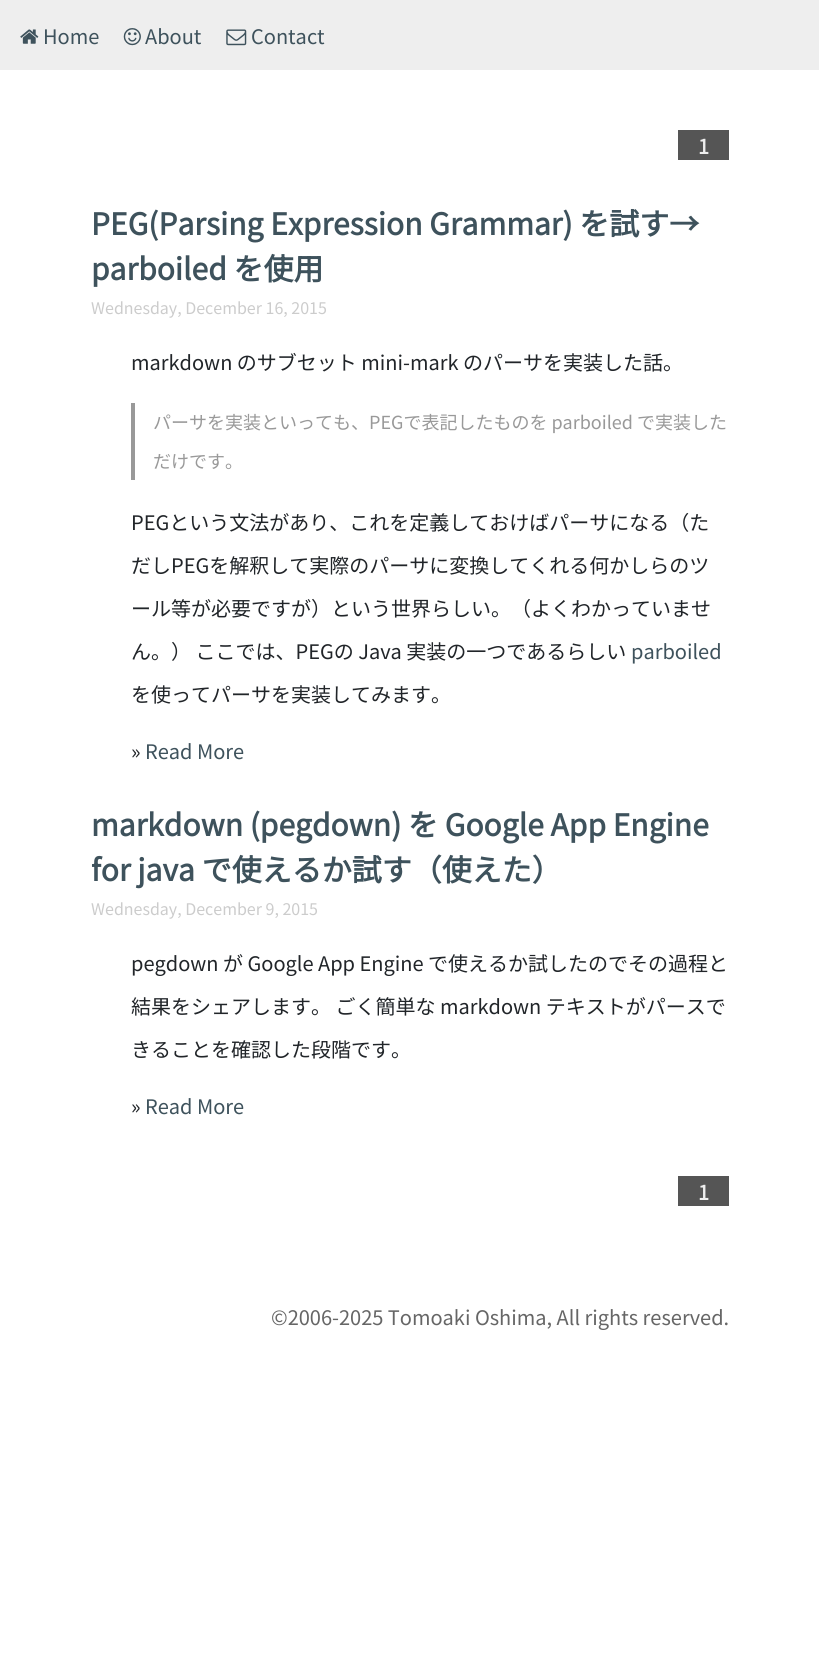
#include <cairo.h>
#include <math.h>
#include <stddef.h>


static void rgb(cairo_t *cr, int r, int g, int b)
{
	cairo_set_source_rgb(cr, r / 255.0, g / 255.0, b / 255.0);
}

static void face(cairo_t *cr, const char *family, double size, int italic, int bold)
{
	cairo_select_font_face(cr, family, italic ? CAIRO_FONT_SLANT_ITALIC : CAIRO_FONT_SLANT_NORMAL,
		bold ? CAIRO_FONT_WEIGHT_BOLD : CAIRO_FONT_WEIGHT_NORMAL);
	cairo_set_font_size(cr, size);
}

static void label(cairo_t *cr, double x, double y, const char *s)
{
	cairo_move_to(cr, x, y);
	cairo_show_text(cr, s);
}

static void rect(cairo_t *cr, double x, double y, double w, double h)
{
	cairo_rectangle(cr, x, y, w, h);
	cairo_fill(cr);
}

static void image(cairo_t *cr, const char *path, double x, double y, double w, double h)
{
	cairo_surface_t *image = cairo_image_surface_create_from_png(path);
	cairo_save(cr);
	cairo_set_source_surface(cr, image, x, y);
	cairo_rectangle(cr, x, y, w, h);
	cairo_fill(cr);
	cairo_restore(cr);
	cairo_surface_destroy(image);
}

static void draw(cairo_t *cr) {
	rgb(cr, 255, 255, 255);
	cairo_paint(cr);
	rgb(cr, 238, 238, 238);
	rect(cr, 0, 0, 819, 70);
	image(cr, "image0.png", 20, 29, 19, 15);
	face(cr, "Noto Sans JP Thin", 20, 0, 0);
	rgb(cr, 62, 82, 92);
	label(cr, 43, 44, "Home");
	image(cr, "image1.png", 123, 28, 18, 18);
	label(cr, 145, 44, "About");
	image(cr, "image2.png", 226, 29, 21, 17);
	label(cr, 251, 44, "Contact");
	rgb(cr, 85, 85, 85);
	rect(cr, 678, 130, 51, 30);
	face(cr, "Noto Sans JP", 20, 0, 1);
	rgb(cr, 238, 238, 238);
	label(cr, 698, 154, "1");
	face(cr, "Noto Sans JP", 30, 0, 1);
	rgb(cr, 62, 82, 92);
	label(cr, 91, 235, "PEG(Parsing Expression Grammar) を試す→");
	label(cr, 91, 280, "parboiled を使用");
	face(cr, "Noto Sans JP Thin", 16, 0, 0);
	rgb(cr, 204, 204, 204);
	label(cr, 91, 314, "Wednesday, December 16, 2015");
	face(cr, "Noto Sans JP Thin", 20, 0, 0);
	rgb(cr, 33, 37, 41);
	label(cr, 131, 370, "markdown のサブセット mini-mark のパーサを実装した話。");
	rgb(cr, 153, 153, 153);
	rect(cr, 131, 403, 4, 77);
	face(cr, "Noto Sans JP Thin", 18, 0, 0);
	label(cr, 153, 429, "パーサを実装といっても、PEGで表記したものを parboiled で実装した");
	label(cr, 153, 468, "だけです。");
	face(cr, "Noto Sans JP Thin", 20, 0, 0);
	rgb(cr, 33, 37, 41);
	label(cr, 131, 530, "PEGという文法があり、これを定義しておけばパーサになる（た");
	label(cr, 131, 573, "だしPEGを解釈して実際のパーサに変換してくれる何かしらのツ");
	label(cr, 131, 616, "ール等が必要ですが）という世界らしい。（よくわかっていませ");
	label(cr, 131, 659, "ん。） ここでは、PEGの Java 実装の一つであるらしい");
	rgb(cr, 62, 82, 92);
	label(cr, 631, 659, "parboiled");
	rgb(cr, 33, 37, 41);
	label(cr, 131, 702, "を使ってパーサを実装してみます。");
	label(cr, 131, 759, "»");
	rgb(cr, 62, 82, 92);
	label(cr, 145, 759, "Read More");
	face(cr, "Noto Sans JP", 30, 0, 1);
	label(cr, 91, 836, "markdown (pegdown) を Google App Engine");
	label(cr, 91, 881, "for java で使えるか試す（使えた）");
	face(cr, "Noto Sans JP Thin", 16, 0, 0);
	rgb(cr, 204, 204, 204);
	label(cr, 91, 915, "Wednesday, December 9, 2015");
	face(cr, "Noto Sans JP Thin", 20, 0, 0);
	rgb(cr, 33, 37, 41);
	label(cr, 131, 971, "pegdown が Google App Engine で使えるか試したのでその過程と");
	label(cr, 131, 1014, "結果をシェアします。 ごく簡単な markdown テキストがパースで");
	label(cr, 131, 1057, "きることを確認した段階です。");
	label(cr, 131, 1114, "»");
	rgb(cr, 62, 82, 92);
	label(cr, 145, 1114, "Read More");
	rgb(cr, 85, 85, 85);
	rect(cr, 678, 1176, 51, 30);
	face(cr, "Noto Sans JP", 20, 0, 1);
	rgb(cr, 238, 238, 238);
	label(cr, 698, 1200, "1");
	face(cr, "Noto Sans JP Thin", 20, 0, 0);
	rgb(cr, 102, 102, 102);
	label(cr, 271, 1325, "©2006-2025 Tomoaki Oshima, All rights reserved.");
}

int main(void) {
	cairo_surface_t *surface = cairo_image_surface_create(CAIRO_FORMAT_RGB24, 819, 1665);
	cairo_t *cr = cairo_create(surface);
	cairo_font_options_t *options = cairo_font_options_create();
	cairo_font_options_set_hint_metrics(options, CAIRO_HINT_METRICS_OFF);
	cairo_font_options_set_hint_style(options, CAIRO_HINT_STYLE_NONE);
	cairo_set_font_options(cr, options);
	cairo_set_miter_limit(cr, 4);
	draw(cr);
	cairo_surface_write_to_png(surface, "render.png");
	cairo_font_options_destroy(options);
	cairo_destroy(cr);
	cairo_surface_destroy(surface);
	return 0;
}
